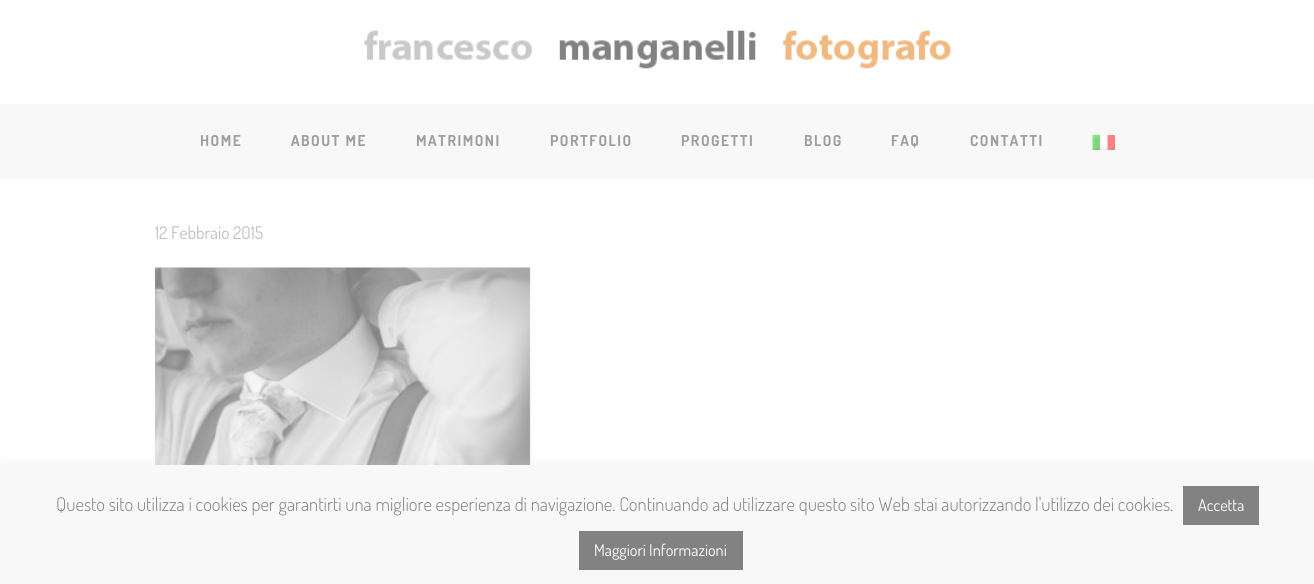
#include <cairo.h>
#include <math.h>
#include <stddef.h>


static void rgb(cairo_t *cr, int r, int g, int b)
{
	cairo_set_source_rgb(cr, r / 255.0, g / 255.0, b / 255.0);
}

static void face(cairo_t *cr, const char *family, double size, int italic, int bold)
{
	cairo_select_font_face(cr, family, italic ? CAIRO_FONT_SLANT_ITALIC : CAIRO_FONT_SLANT_NORMAL,
		bold ? CAIRO_FONT_WEIGHT_BOLD : CAIRO_FONT_WEIGHT_NORMAL);
	cairo_set_font_size(cr, size);
}

static void label(cairo_t *cr, double x, double y, const char *s)
{
	cairo_move_to(cr, x, y);
	cairo_show_text(cr, s);
}

static void tracked(cairo_t *cr, double x, double y, const char *s, double letter, double word)
{
	cairo_move_to(cr, x, y);
	while (*s) {
		char ch[5] = {0};
		int n = 0;
		do ch[n++] = *s++; while ((*s & 0xC0) == 0x80);
		cairo_show_text(cr, ch);
		cairo_rel_move_to(cr, letter + word * (*ch == ' '), 0);
	}
}

static void rect(cairo_t *cr, double x, double y, double w, double h)
{
	cairo_rectangle(cr, x, y, w, h);
	cairo_fill(cr);
}

static void rrect(cairo_t *cr, double x, double y, double w, double h, double r)
{
	cairo_new_sub_path(cr);
	cairo_arc(cr, x + w - r, y + h - r, r, 0, M_PI / 2);
	cairo_arc(cr, x + r, y + h - r, r, M_PI / 2, M_PI);
	cairo_arc(cr, x + r, y + r, r, M_PI, 1.5 * M_PI);
	cairo_arc(cr, x + w - r, y + r, r, 1.5 * M_PI, 2 * M_PI);
	cairo_close_path(cr);
}

static void soft_shadow(cairo_t *cr, double x, double y, double w, double h, double r, double blur, double alpha)
{
	cairo_push_group_with_content(cr, CAIRO_CONTENT_ALPHA);
	cairo_set_operator(cr, CAIRO_OPERATOR_SOURCE);
	for (int i = 15; i >= -15 && fmin(w, h) + blur * i / 3 > 0; i -= 2) {
		double e = blur * i / 6;
		cairo_set_source_rgba(cr, 0, 0, 0, alpha * erfc((i - 1) / 8.5) / 2);
		rrect(cr, x - e, y - e, w + 2 * e, h + 2 * e, fmax(0, fmin(r + e + blur * .6, fmin(w, h) / 2 + e)));
		cairo_fill(cr);
	}
	cairo_pattern_t *soft = cairo_pop_group(cr);
	cairo_mask(cr, soft);
	cairo_pattern_destroy(soft);
}

static void image(cairo_t *cr, const char *path, double x, double y, double w, double h)
{
	cairo_surface_t *image = cairo_image_surface_create_from_png(path);
	cairo_save(cr);
	cairo_set_source_surface(cr, image, x, y);
	cairo_rectangle(cr, x, y, w, h);
	cairo_fill(cr);
	cairo_restore(cr);
	cairo_surface_destroy(image);
}

static void draw(cairo_t *cr) {
	rgb(cr, 255, 255, 255);
	cairo_paint(cr);
	image(cr, "image0.png", 364, 30, 587, 39);
	rgb(cr, 248, 248, 248);
	rect(cr, 0, 104, 1314, 75);
	face(cr, "Dosis", 15, 0, 1);
	rgb(cr, 158, 158, 158);
	tracked(cr, 200, 146, "HOME", 1.5, 0);
	tracked(cr, 291, 146, "ABOUT ME", 1.5, 0);
	tracked(cr, 416, 146, "MATRIMONI", 1.5, 0);
	tracked(cr, 550, 146, "PORTFOLIO", 1.5, 0);
	tracked(cr, 681, 146, "PROGETTI", 1.5, 0);
	tracked(cr, 804, 146, "BLOG", 1.5, 0);
	tracked(cr, 891, 146, "FAQ", 1.5, 0);
	tracked(cr, 970, 146, "CONTATTI", 1.5, 0);
	image(cr, "image1.png", 1092, 135, 23, 15);
	face(cr, "Dosis", 17.5, 0, 0);
	rgb(cr, 191, 191, 191);
	label(cr, 155, 239, "12 Febbraio 2015");
	image(cr, "image2.png", 155, 267, 376, 198);
	rgb(cr, 214, 214, 214);
	soft_shadow(cr, 0, 464, 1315, 120, 0, 6, 0.3);
	rgb(cr, 248, 248, 248);
	rect(cr, 0, 465, 1314, 119);
	face(cr, "Dosis Light", 18.75, 0, 0);
	rgb(cr, 130, 130, 130);
	label(cr, 56, 511, "Questo sito utilizza i cookies per garantirti una migliore esperienza di navigazione. Continuando ad utilizzare questo sito Web stai autorizzando l'utilizzo dei cookies.");
	rect(cr, 1183, 486, 76, 39);
	face(cr, "Dosis", 16.25, 0, 0);
	rgb(cr, 255, 255, 255);
	label(cr, 1198, 511, "Accetta");
	rgb(cr, 130, 130, 130);
	rect(cr, 579, 531, 164, 39);
	rgb(cr, 255, 255, 255);
	label(cr, 594, 556, "Maggiori Informazioni");
}

int main(void) {
	cairo_surface_t *surface = cairo_image_surface_create(CAIRO_FORMAT_RGB24, 1314, 584);
	cairo_t *cr = cairo_create(surface);
	cairo_font_options_t *options = cairo_font_options_create();
	cairo_font_options_set_hint_metrics(options, CAIRO_HINT_METRICS_OFF);
	cairo_font_options_set_hint_style(options, CAIRO_HINT_STYLE_NONE);
	cairo_set_font_options(cr, options);
	cairo_set_miter_limit(cr, 4);
	draw(cr);
	cairo_surface_write_to_png(surface, "render.png");
	cairo_font_options_destroy(options);
	cairo_destroy(cr);
	cairo_surface_destroy(surface);
	return 0;
}
